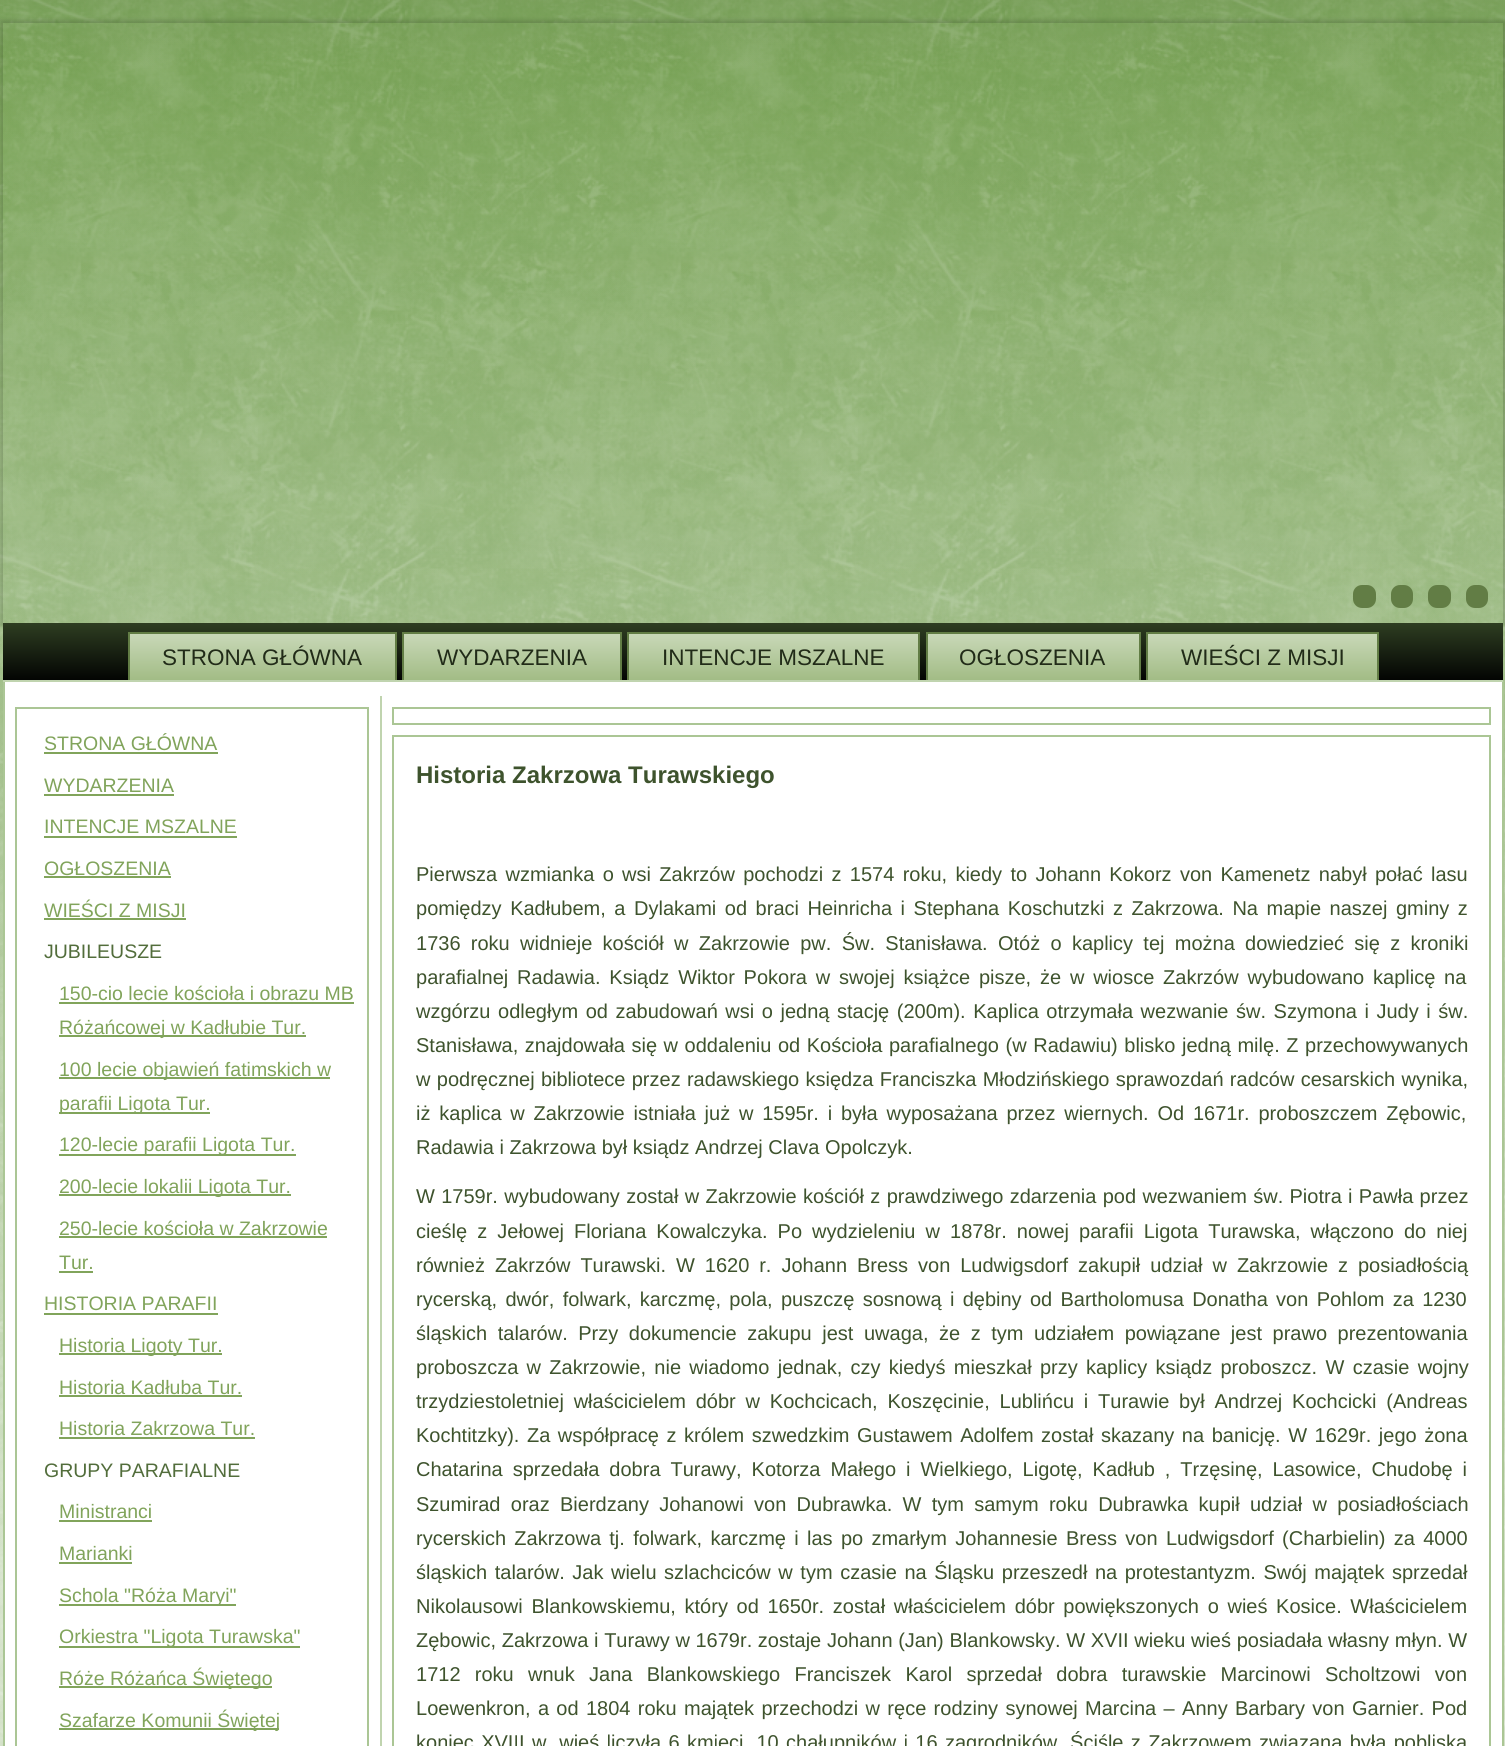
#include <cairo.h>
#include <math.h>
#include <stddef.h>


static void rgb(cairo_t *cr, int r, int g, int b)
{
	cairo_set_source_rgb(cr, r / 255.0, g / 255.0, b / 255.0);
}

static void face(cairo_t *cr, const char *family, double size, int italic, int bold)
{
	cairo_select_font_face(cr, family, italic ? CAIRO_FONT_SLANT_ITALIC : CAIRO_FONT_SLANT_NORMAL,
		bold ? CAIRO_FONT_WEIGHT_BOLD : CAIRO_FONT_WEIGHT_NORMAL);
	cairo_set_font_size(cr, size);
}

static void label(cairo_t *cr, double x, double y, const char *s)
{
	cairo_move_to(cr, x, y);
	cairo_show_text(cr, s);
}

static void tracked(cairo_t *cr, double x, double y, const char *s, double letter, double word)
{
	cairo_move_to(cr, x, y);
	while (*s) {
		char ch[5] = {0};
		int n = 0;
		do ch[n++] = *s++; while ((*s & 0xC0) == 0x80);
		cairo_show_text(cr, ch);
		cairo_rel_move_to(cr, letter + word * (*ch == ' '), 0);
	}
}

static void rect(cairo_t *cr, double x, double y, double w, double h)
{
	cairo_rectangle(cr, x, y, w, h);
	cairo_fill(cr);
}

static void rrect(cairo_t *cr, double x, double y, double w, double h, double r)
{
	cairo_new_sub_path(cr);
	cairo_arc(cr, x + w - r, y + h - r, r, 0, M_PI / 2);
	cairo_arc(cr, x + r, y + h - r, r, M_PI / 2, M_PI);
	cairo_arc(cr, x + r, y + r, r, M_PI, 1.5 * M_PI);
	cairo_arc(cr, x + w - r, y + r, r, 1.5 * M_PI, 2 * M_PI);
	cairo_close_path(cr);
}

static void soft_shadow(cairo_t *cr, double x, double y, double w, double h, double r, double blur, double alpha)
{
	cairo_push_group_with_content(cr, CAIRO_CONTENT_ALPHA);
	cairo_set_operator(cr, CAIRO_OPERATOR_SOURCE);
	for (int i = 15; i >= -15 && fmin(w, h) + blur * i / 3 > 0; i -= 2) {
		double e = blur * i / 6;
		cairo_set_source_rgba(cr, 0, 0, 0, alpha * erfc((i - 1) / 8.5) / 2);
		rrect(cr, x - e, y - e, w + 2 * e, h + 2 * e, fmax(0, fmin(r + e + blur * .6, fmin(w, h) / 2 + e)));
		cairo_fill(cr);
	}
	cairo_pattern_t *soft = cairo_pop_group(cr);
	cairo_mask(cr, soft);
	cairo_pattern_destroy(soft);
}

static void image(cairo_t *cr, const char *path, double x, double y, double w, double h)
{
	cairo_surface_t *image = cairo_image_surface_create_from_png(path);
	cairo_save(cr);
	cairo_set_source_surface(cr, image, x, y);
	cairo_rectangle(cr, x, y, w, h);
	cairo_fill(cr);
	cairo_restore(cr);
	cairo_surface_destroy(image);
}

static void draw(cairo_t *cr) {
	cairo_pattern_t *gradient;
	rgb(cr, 255, 255, 255);
	cairo_paint(cr);
	image(cr, "image0.png", 0, 0, 1505, 1746);
	cairo_save(cr);
	cairo_set_fill_rule(cr, CAIRO_FILL_RULE_EVEN_ODD);
	cairo_new_path(cr);
	cairo_move_to(cr, 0, 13);
	cairo_line_to(cr, 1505, 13);
	cairo_line_to(cr, 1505, 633);
	cairo_line_to(cr, 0, 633);
	cairo_close_path(cr);
	cairo_move_to(cr, 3, 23);
	cairo_line_to(cr, 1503, 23);
	cairo_line_to(cr, 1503, 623);
	cairo_line_to(cr, 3, 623);
	cairo_close_path(cr);
	cairo_clip(cr);
	rgb(cr, 0, 0, 0);
	soft_shadow(cr, 0, 20, 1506, 606, 0, 2, 0.15);
	cairo_restore(cr);
	rgb(cr, 98, 125, 69);
	rrect(cr, 1353, 585, 23, 23, 9);
	cairo_fill(cr);
	rrect(cr, 1391, 585, 22, 23, 9);
	cairo_fill(cr);
	rrect(cr, 1428, 585, 23, 23, 9);
	cairo_fill(cr);
	rrect(cr, 1466, 585, 22, 23, 9);
	cairo_fill(cr);
	gradient = cairo_pattern_create_linear(753, 622, 753, 681);
	cairo_pattern_add_color_stop_rgba(gradient, 0, 0.184, 0.247, 0.133, 1);
	cairo_pattern_add_color_stop_rgba(gradient, 1, 0.008, 0.012, 0.008, 1);
	cairo_set_source(cr, gradient);
	cairo_pattern_destroy(gradient);
	rect(cr, 3, 623, 1500, 57);
	rgb(cr, 171, 198, 149);
	rect(cr, 1502, 681, 2, 1065);
	rect(cr, 3, 681, 2, 1065);
	rgb(cr, 192, 212, 175);
	rect(cr, 3, 680, 1500, 2);
	gradient = cairo_pattern_create_linear(262, 632, 262, 680);
	cairo_pattern_add_color_stop_rgba(gradient, 0, 0.792, 0.851, 0.729, 1);
	cairo_pattern_add_color_stop_rgba(gradient, 1, 0.635, 0.737, 0.522, 1);
	cairo_set_source(cr, gradient);
	cairo_pattern_destroy(gradient);
	rect(cr, 130, 634, 265, 46);
	rgb(cr, 98, 125, 69);
	rect(cr, 128, 632, 268, 2);
	rect(cr, 395, 632, 2, 48);
	rect(cr, 128, 632, 2, 48);
	face(cr, "Liberation Sans", 22.5, 0, 0);
	rgb(cr, 33, 43, 24);
	label(cr, 162, 665, "STRONA GŁÓWNA");
	gradient = cairo_pattern_create_linear(512, 632, 512, 680);
	cairo_pattern_add_color_stop_rgba(gradient, 0, 0.792, 0.851, 0.729, 1);
	cairo_pattern_add_color_stop_rgba(gradient, 1, 0.635, 0.737, 0.522, 1);
	cairo_set_source(cr, gradient);
	cairo_pattern_destroy(gradient);
	rect(cr, 404, 634, 216, 46);
	rgb(cr, 98, 125, 69);
	rect(cr, 402, 632, 219, 2);
	rect(cr, 620, 632, 2, 48);
	rect(cr, 402, 632, 2, 48);
	rgb(cr, 33, 43, 24);
	label(cr, 437, 665, "WYDARZENIA");
	gradient = cairo_pattern_create_linear(773, 632, 773, 680);
	cairo_pattern_add_color_stop_rgba(gradient, 0, 0.792, 0.851, 0.729, 1);
	cairo_pattern_add_color_stop_rgba(gradient, 1, 0.635, 0.737, 0.522, 1);
	cairo_set_source(cr, gradient);
	cairo_pattern_destroy(gradient);
	rect(cr, 629, 634, 289, 46);
	rgb(cr, 98, 125, 69);
	rect(cr, 627, 632, 293, 2);
	rect(cr, 918, 632, 2, 48);
	rect(cr, 627, 632, 2, 48);
	rgb(cr, 33, 43, 24);
	label(cr, 662, 665, "INTENCJE MSZALNE");
	gradient = cairo_pattern_create_linear(1033, 632, 1033, 680);
	cairo_pattern_add_color_stop_rgba(gradient, 0, 0.792, 0.851, 0.729, 1);
	cairo_pattern_add_color_stop_rgba(gradient, 1, 0.635, 0.737, 0.522, 1);
	cairo_set_source(cr, gradient);
	cairo_pattern_destroy(gradient);
	rect(cr, 928, 634, 211, 46);
	rgb(cr, 98, 125, 69);
	rect(cr, 926, 632, 214, 2);
	rect(cr, 1139, 632, 2, 48);
	rect(cr, 926, 632, 2, 48);
	rgb(cr, 33, 43, 24);
	label(cr, 959, 665, "OGŁOSZENIA");
	gradient = cairo_pattern_create_linear(1262, 632, 1262, 680);
	cairo_pattern_add_color_stop_rgba(gradient, 0, 0.792, 0.851, 0.729, 1);
	cairo_pattern_add_color_stop_rgba(gradient, 1, 0.635, 0.737, 0.522, 1);
	cairo_set_source(cr, gradient);
	cairo_pattern_destroy(gradient);
	rect(cr, 1148, 634, 229, 46);
	rgb(cr, 98, 125, 69);
	rect(cr, 1146, 632, 233, 2);
	rect(cr, 1377, 632, 2, 48);
	rect(cr, 1146, 632, 2, 48);
	rgb(cr, 33, 43, 24);
	label(cr, 1181, 665, "WIEŚCI Z MISJI");
	rgb(cr, 255, 255, 255);
	rect(cr, 5, 682, 1497, 1064);
	rgb(cr, 192, 212, 175);
	rect(cr, 380, 696, 2, 1050);
	cairo_rectangle(cr, 16, 708, 352, 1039);
	rgb(cr, 171, 198, 149);
	cairo_stroke(cr);
	face(cr, "Liberation Sans", 19.5, 0, 0);
	rgb(cr, 129, 164, 91);
	label(cr, 44, 750, "STRONA GŁÓWNA");
	rect(cr, 44, 752, 174, 2);
	label(cr, 44, 792, "WYDARZENIA");
	rect(cr, 44, 794, 130, 2);
	label(cr, 44, 833, "INTENCJE MSZALNE");
	rect(cr, 44, 836, 193, 2);
	label(cr, 44, 875, "OGŁOSZENIA");
	rect(cr, 44, 876, 127, 2);
	label(cr, 44, 917, "WIEŚCI Z MISJI");
	rect(cr, 44, 918, 142, 2);
	rgb(cr, 82, 109, 59);
	label(cr, 44, 958, "JUBILEUSZE");
	rgb(cr, 129, 164, 91);
	label(cr, 59, 1000, "150-cio lecie kościoła i obrazu MB");
	rect(cr, 59, 1002, 295, 2);
	rect(cr, 59, 1035, 247, 2);
	label(cr, 59, 1034, "Różańcowej w Kadłubie Tur.");
	rect(cr, 59, 1077, 271, 2);
	label(cr, 59, 1076, "100 lecie objawień fatimskich w");
	rect(cr, 59, 1112, 151, 2);
	label(cr, 59, 1110, "parafii Ligota Tur.");
	rect(cr, 59, 1154, 237, 2);
	label(cr, 59, 1151, "120-lecie parafii Ligota Tur.");
	rect(cr, 59, 1194, 232, 2);
	label(cr, 59, 1193, "200-lecie lokalii Ligota Tur.");
	label(cr, 59, 1235, "250-lecie kościoła w Zakrzowie");
	rect(cr, 59, 1236, 268, 2);
	label(cr, 59, 1269, "Tur.");
	rect(cr, 59, 1271, 34, 2);
	label(cr, 44, 1310, "HISTORIA PARAFII");
	rect(cr, 44, 1313, 174, 2);
	rect(cr, 59, 1353, 163, 2);
	label(cr, 59, 1352, "Historia Ligoty Tur.");
	label(cr, 59, 1394, "Historia Kadłuba Tur.");
	rect(cr, 59, 1395, 183, 2);
	label(cr, 59, 1435, "Historia Zakrzowa Tur.");
	rect(cr, 59, 1437, 196, 2);
	rgb(cr, 82, 109, 59);
	label(cr, 44, 1477, "GRUPY PARAFIALNE");
	rgb(cr, 129, 164, 91);
	label(cr, 59, 1518, "Ministranci");
	rect(cr, 59, 1520, 93, 2);
	label(cr, 59, 1560, "Marianki");
	rect(cr, 59, 1562, 73, 2);
	rect(cr, 59, 1604, 177, 2);
	label(cr, 59, 1602, "Schola \"Róża Maryi\"");
	rect(cr, 59, 1646, 241, 2);
	label(cr, 59, 1643, "Orkiestra \"Ligota Turawska\"");
	rect(cr, 59, 1686, 213, 2);
	label(cr, 59, 1685, "Róże Różańca Świętego");
	rect(cr, 59, 1728, 220, 2);
	label(cr, 59, 1727, "Szafarze Komunii Świętej");
	cairo_rectangle(cr, 393, 708, 1097, 16);
	rgb(cr, 171, 198, 149);
	cairo_stroke(cr);
	cairo_rectangle(cr, 393, 736, 1097, 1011);
	cairo_stroke(cr);
	face(cr, "Liberation Sans", 24, 0, 1);
	rgb(cr, 62, 83, 45);
	label(cr, 416, 783, "Historia Zakrzowa Turawskiego");
	face(cr, "Liberation Sans", 20, 0, 0);
	tracked(cr, 416, 881, "Pierwsza wzmianka o wsi Zakrzów pochodzi z 1574 roku, kiedy to Johann Kokorz von Kamenetz nabył połać lasu", 0, 2.75);
	tracked(cr, 416, 915, "pomiędzy Kadłubem, a Dylakami od braci Heinricha i Stephana Koschutzki z Zakrzowa. Na mapie naszej gminy z", 0, 3);
	tracked(cr, 416, 950, "1736 roku widnieje kościół w Zakrzowie pw. Św. Stanisława. Otóż o kaplicy tej można dowiedzieć się z kroniki", 0, 4.75);
	tracked(cr, 416, 984, "parafialnej Radawia. Ksiądz Wiktor Pokora w swojej książce pisze, że w wiosce Zakrzów wybudowano kaplicę na", 0, 3.25);
	tracked(cr, 416, 1018, "wzgórzu odległym od zabudowań wsi o jedną stację (200m). Kaplica otrzymała wezwanie św. Szymona i Judy i św.", 0, 2);
	tracked(cr, 416, 1052, "Stanisława, znajdowała się w oddaleniu od Kościoła parafialnego (w Radawiu) blisko jedną milę. Z przechowywanych", 0, 1);
	tracked(cr, 416, 1086, "w podręcznej bibliotece przez radawskiego księdza Franciszka Młodzińskiego sprawozdań radców cesarskich wynika,", 0, 0.75);
	tracked(cr, 416, 1120, "iż kaplica w Zakrzowie istniała już w 1595r. i była wyposażana przez wiernych. Od 1671r. proboszczem Zębowic,", 0, 3.25);
	label(cr, 416, 1154, "Radawia i Zakrzowa był ksiądz Andrzej Clava Opolczyk.");
	tracked(cr, 416, 1203, "W 1759r. wybudowany został w Zakrzowie kościół z prawdziwego zdarzenia pod wezwaniem św. Piotra i Pawła przez", 0, 0.75);
	tracked(cr, 416, 1238, "cieślę z Jełowej Floriana Kowalczyka. Po wydzieleniu w 1878r. nowej parafii Ligota Turawska, włączono do niej", 0, 4.5);
	tracked(cr, 416, 1272, "również Zakrzów Turawski. W 1620 r. Johann Bress von Ludwigsdorf zakupił udział w Zakrzowie z posiadłością", 0, 4.4);
	tracked(cr, 416, 1306, "rycerską, dwór, folwark, karczmę, pola, puszczę sosnową i dębiny od Bartholomusa Donatha von Pohlom za 1230", 0, 2.75);
	tracked(cr, 416, 1340, "śląskich talarów. Przy dokumencie zakupu jest uwaga, że z tym udziałem powiązane jest prawo prezentowania", 0, 5);
	tracked(cr, 416, 1374, "proboszcza w Zakrzowie, nie wiadomo jednak, czy kiedyś mieszkał przy kaplicy ksiądz proboszcz. W czasie wojny", 0, 2.75);
	tracked(cr, 416, 1408, "trzydziestoletniej właścicielem dóbr w Kochcicach, Koszęcinie, Lublińcu i Turawie był Andrzej Kochcicki (Andreas", 0, 4.25);
	tracked(cr, 416, 1442, "Kochtitzky). Za współpracę z królem szwedzkim Gustawem Adolfem został skazany na banicję. W 1629r. jego żona", 0, 2);
	tracked(cr, 416, 1476, "Chatarina sprzedała dobra Turawy, Kotorza Małego i Wielkiego, Ligotę, Kadłub , Trzęsinę, Lasowice, Chudobę i", 0, 4.4);
	tracked(cr, 416, 1511, "Szumirad oraz Bierdzany Johanowi von Dubrawka. W tym samym roku Dubrawka kupił udział w posiadłościach", 0, 4.75);
	tracked(cr, 416, 1545, "rycerskich Zakrzowa tj. folwark, karczmę i las po zmarłym Johannesie Bress von Ludwigsdorf (Charbielin) za 4000", 0, 2.75);
	tracked(cr, 416, 1579, "śląskich talarów. Jak wielu szlachciców w tym czasie na Śląsku przeszedł na protestantyzm. Swój majątek sprzedał", 0, 2);
	tracked(cr, 416, 1613, "Nikolausowi Blankowskiemu, który od 1650r. został właścicielem dóbr powiększonych o wieś Kosice. Właścicielem", 0, 3.1);
	tracked(cr, 416, 1647, "Zębowic, Zakrzowa i Turawy w 1679r. zostaje Johann (Jan) Blankowsky. W XVII wieku wieś posiadała własny młyn. W", 0, 0.1);
	tracked(cr, 416, 1681, "1712 roku wnuk Jana Blankowskiego Franciszek Karol sprzedał dobra turawskie Marcinowi Scholtzowi von", 0, 8.75);
	tracked(cr, 416, 1715, "Loewenkron, a od 1804 roku majątek przechodzi w ręce rodziny synowej Marcina – Anny Barbary von Garnier. Pod", 0, 1.8);
	tracked(cr, 416, 1749, "koniec XVIII w. wieś liczyła 6 kmieci, 10 chałupników i 16 zagrodników. Ściśle z Zakrzowem związana była pobliska", 0, 1.8);
}

int main(void) {
	cairo_surface_t *surface = cairo_image_surface_create(CAIRO_FORMAT_RGB24, 1505, 1746);
	cairo_t *cr = cairo_create(surface);
	cairo_font_options_t *options = cairo_font_options_create();
	cairo_font_options_set_hint_metrics(options, CAIRO_HINT_METRICS_OFF);
	cairo_font_options_set_hint_style(options, CAIRO_HINT_STYLE_NONE);
	cairo_set_font_options(cr, options);
	cairo_set_miter_limit(cr, 4);
	draw(cr);
	cairo_surface_write_to_png(surface, "render.png");
	cairo_font_options_destroy(options);
	cairo_destroy(cr);
	cairo_surface_destroy(surface);
	return 0;
}
